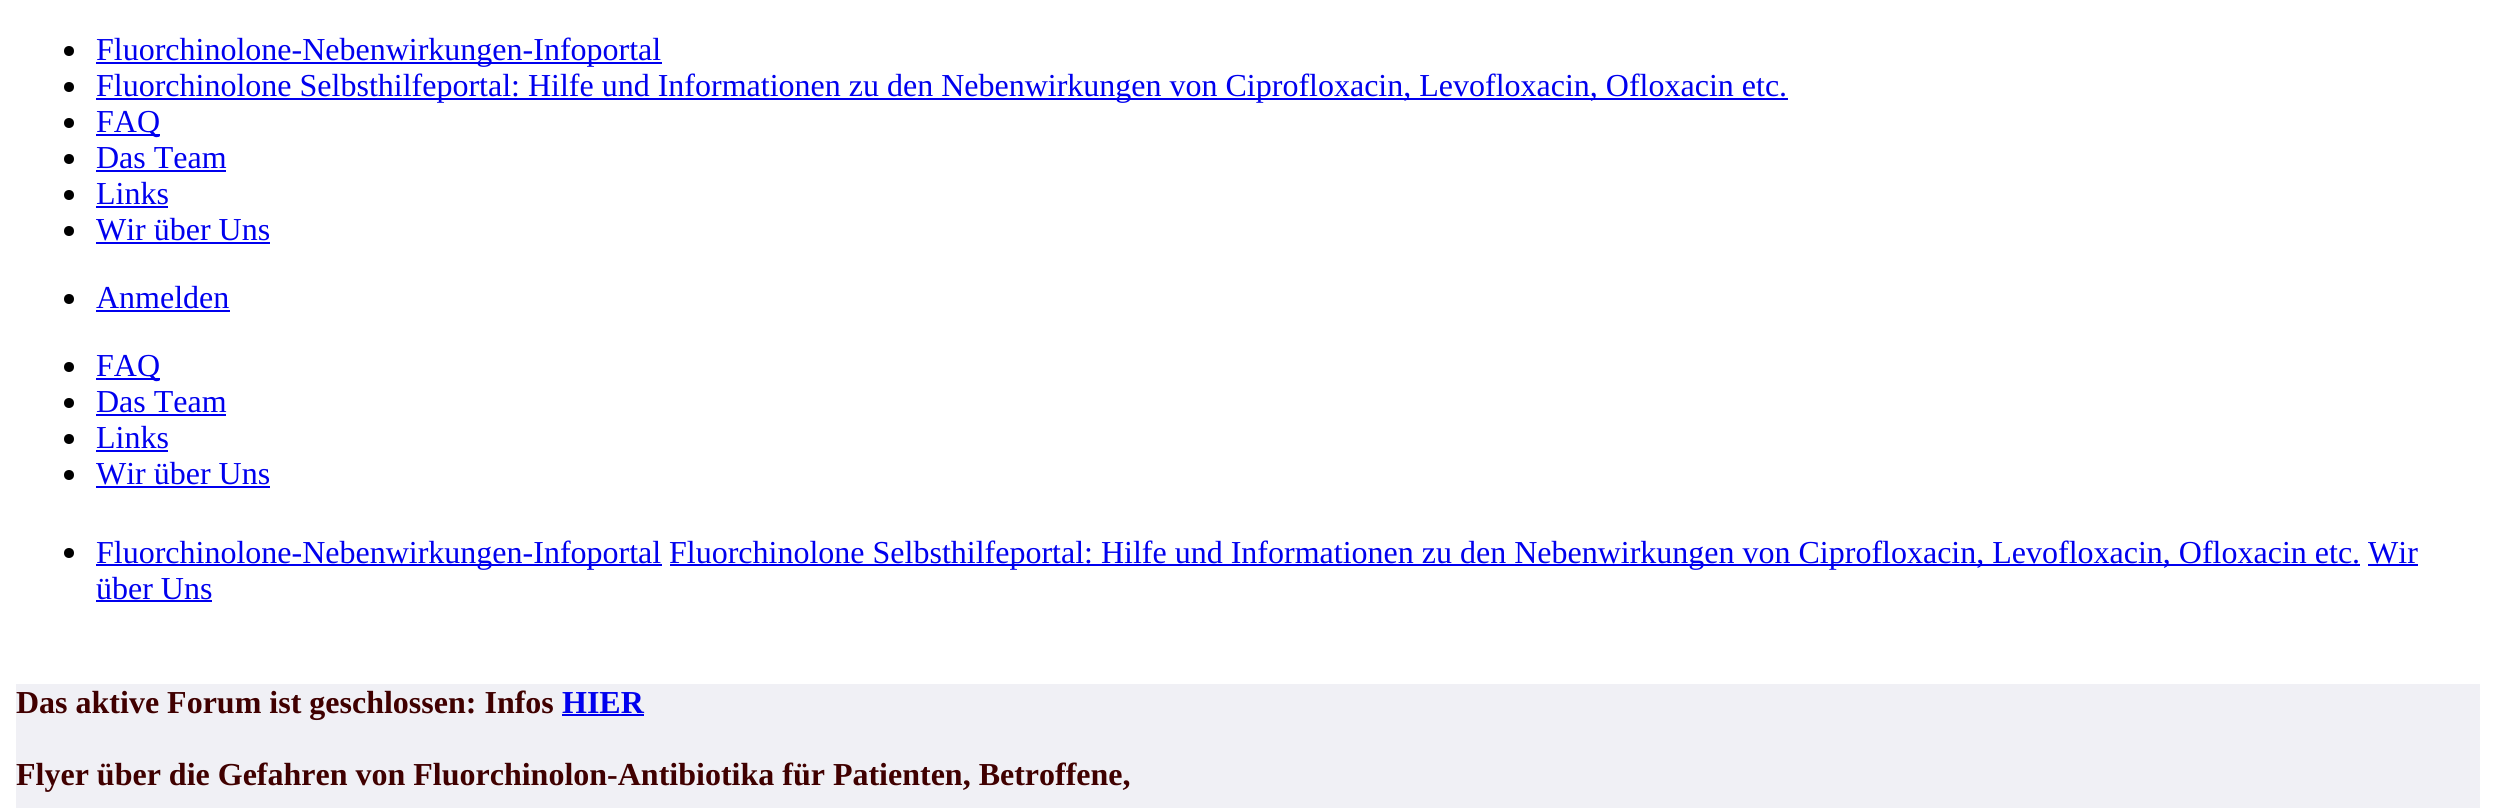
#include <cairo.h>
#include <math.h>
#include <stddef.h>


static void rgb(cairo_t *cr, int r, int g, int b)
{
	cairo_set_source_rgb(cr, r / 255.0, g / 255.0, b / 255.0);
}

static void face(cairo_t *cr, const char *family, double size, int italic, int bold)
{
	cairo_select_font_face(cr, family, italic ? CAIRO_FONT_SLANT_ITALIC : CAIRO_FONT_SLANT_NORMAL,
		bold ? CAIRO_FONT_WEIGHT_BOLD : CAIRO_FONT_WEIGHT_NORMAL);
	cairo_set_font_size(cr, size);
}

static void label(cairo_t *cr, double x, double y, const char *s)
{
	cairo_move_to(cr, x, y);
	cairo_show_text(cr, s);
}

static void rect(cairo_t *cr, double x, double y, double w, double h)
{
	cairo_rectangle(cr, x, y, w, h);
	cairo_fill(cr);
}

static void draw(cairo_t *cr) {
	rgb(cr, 255, 255, 255);
	cairo_paint(cr);
	rgb(cr, 0, 0, 0);
	cairo_arc(cr, 69, 51, 5, 0, 2 * M_PI);
	cairo_fill(cr);
	rgb(cr, 0, 0, 238);
	rect(cr, 96, 62, 566, 2);
	face(cr, "Liberation Serif", 32, 0, 0);
	label(cr, 96, 60, "Fluorchinolone-Nebenwirkungen-Infoportal");
	rgb(cr, 0, 0, 0);
	cairo_new_path(cr);
	cairo_arc(cr, 69, 87, 5, 0, 2 * M_PI);
	cairo_fill(cr);
	rgb(cr, 0, 0, 238);
	rect(cr, 96, 98, 1692, 2);
	label(cr, 96, 96, "Fluorchinolone Selbsthilfeportal: Hilfe und Informationen zu den Nebenwirkungen von Ciprofloxacin, Levofloxacin, Ofloxacin etc.");
	rgb(cr, 0, 0, 0);
	cairo_new_path(cr);
	cairo_arc(cr, 69, 123, 5, 0, 2 * M_PI);
	cairo_fill(cr);
	rgb(cr, 0, 0, 238);
	rect(cr, 96, 134, 64, 2);
	label(cr, 96, 132, "FAQ");
	rgb(cr, 0, 0, 0);
	cairo_new_path(cr);
	cairo_arc(cr, 69, 159, 5, 0, 2 * M_PI);
	cairo_fill(cr);
	rgb(cr, 0, 0, 238);
	label(cr, 96, 168, "Das Team");
	rect(cr, 96, 170, 130, 2);
	rgb(cr, 0, 0, 0);
	cairo_new_path(cr);
	cairo_arc(cr, 69, 195, 5, 0, 2 * M_PI);
	cairo_fill(cr);
	rgb(cr, 0, 0, 238);
	label(cr, 96, 204, "Links");
	rect(cr, 96, 206, 72, 2);
	rgb(cr, 0, 0, 0);
	cairo_new_path(cr);
	cairo_arc(cr, 69, 231, 5, 0, 2 * M_PI);
	cairo_fill(cr);
	rgb(cr, 0, 0, 238);
	label(cr, 96, 240, "Wir über Uns");
	rect(cr, 96, 242, 174, 2);
	rgb(cr, 0, 0, 0);
	cairo_new_path(cr);
	cairo_arc(cr, 69, 299, 5, 0, 2 * M_PI);
	cairo_fill(cr);
	rgb(cr, 0, 0, 238);
	label(cr, 96, 308, "Anmelden");
	rect(cr, 96, 310, 134, 2);
	rgb(cr, 0, 0, 0);
	cairo_new_path(cr);
	cairo_arc(cr, 69, 367, 5, 0, 2 * M_PI);
	cairo_fill(cr);
	rgb(cr, 0, 0, 238);
	rect(cr, 96, 378, 64, 2);
	label(cr, 96, 376, "FAQ");
	rgb(cr, 0, 0, 0);
	cairo_new_path(cr);
	cairo_arc(cr, 69, 403, 5, 0, 2 * M_PI);
	cairo_fill(cr);
	rgb(cr, 0, 0, 238);
	label(cr, 96, 412, "Das Team");
	rect(cr, 96, 414, 130, 2);
	rgb(cr, 0, 0, 0);
	cairo_new_path(cr);
	cairo_arc(cr, 69, 439, 5, 0, 2 * M_PI);
	cairo_fill(cr);
	rgb(cr, 0, 0, 238);
	label(cr, 96, 448, "Links");
	rect(cr, 96, 450, 72, 2);
	rgb(cr, 0, 0, 0);
	cairo_new_path(cr);
	cairo_arc(cr, 69, 475, 5, 0, 2 * M_PI);
	cairo_fill(cr);
	rgb(cr, 0, 0, 238);
	label(cr, 96, 484, "Wir über Uns");
	rect(cr, 96, 486, 174, 2);
	rgb(cr, 0, 0, 0);
	cairo_new_path(cr);
	cairo_arc(cr, 69, 553, 5, 0, 2 * M_PI);
	cairo_fill(cr);
	rgb(cr, 0, 0, 238);
	rect(cr, 96, 564, 566, 2);
	label(cr, 96, 563, "Fluorchinolone-Nebenwirkungen-Infoportal");
	rect(cr, 670, 564, 1690, 2);
	label(cr, 669, 563, "Fluorchinolone Selbsthilfeportal: Hilfe und Informationen zu den Nebenwirkungen von Ciprofloxacin, Levofloxacin, Ofloxacin etc. Wir");
	label(cr, 96, 599, "über Uns");
	rect(cr, 2368, 564, 50, 2);
	rect(cr, 96, 600, 116, 2);
	rgb(cr, 240, 240, 245);
	rect(cr, 16, 684, 2464, 124);
	face(cr, "Liberation Serif", 32, 0, 1);
	rgb(cr, 64, 0, 0);
	label(cr, 16, 713, "Das aktive Forum ist geschlossen: Infos");
	rgb(cr, 0, 0, 238);
	label(cr, 562, 713, "HIER");
	rect(cr, 562, 714, 82, 2);
	rgb(cr, 64, 0, 0);
	label(cr, 16, 785, "Flyer über die Gefahren von Fluorchinolon-Antibiotika für Patienten, Betroffene,");
}

int main(void) {
	cairo_surface_t *surface = cairo_image_surface_create(CAIRO_FORMAT_RGB24, 2495, 808);
	cairo_t *cr = cairo_create(surface);
	cairo_font_options_t *options = cairo_font_options_create();
	cairo_font_options_set_hint_metrics(options, CAIRO_HINT_METRICS_OFF);
	cairo_font_options_set_hint_style(options, CAIRO_HINT_STYLE_NONE);
	cairo_set_font_options(cr, options);
	cairo_set_miter_limit(cr, 4);
	draw(cr);
	cairo_surface_write_to_png(surface, "render.png");
	cairo_font_options_destroy(options);
	cairo_destroy(cr);
	cairo_surface_destroy(surface);
	return 0;
}
